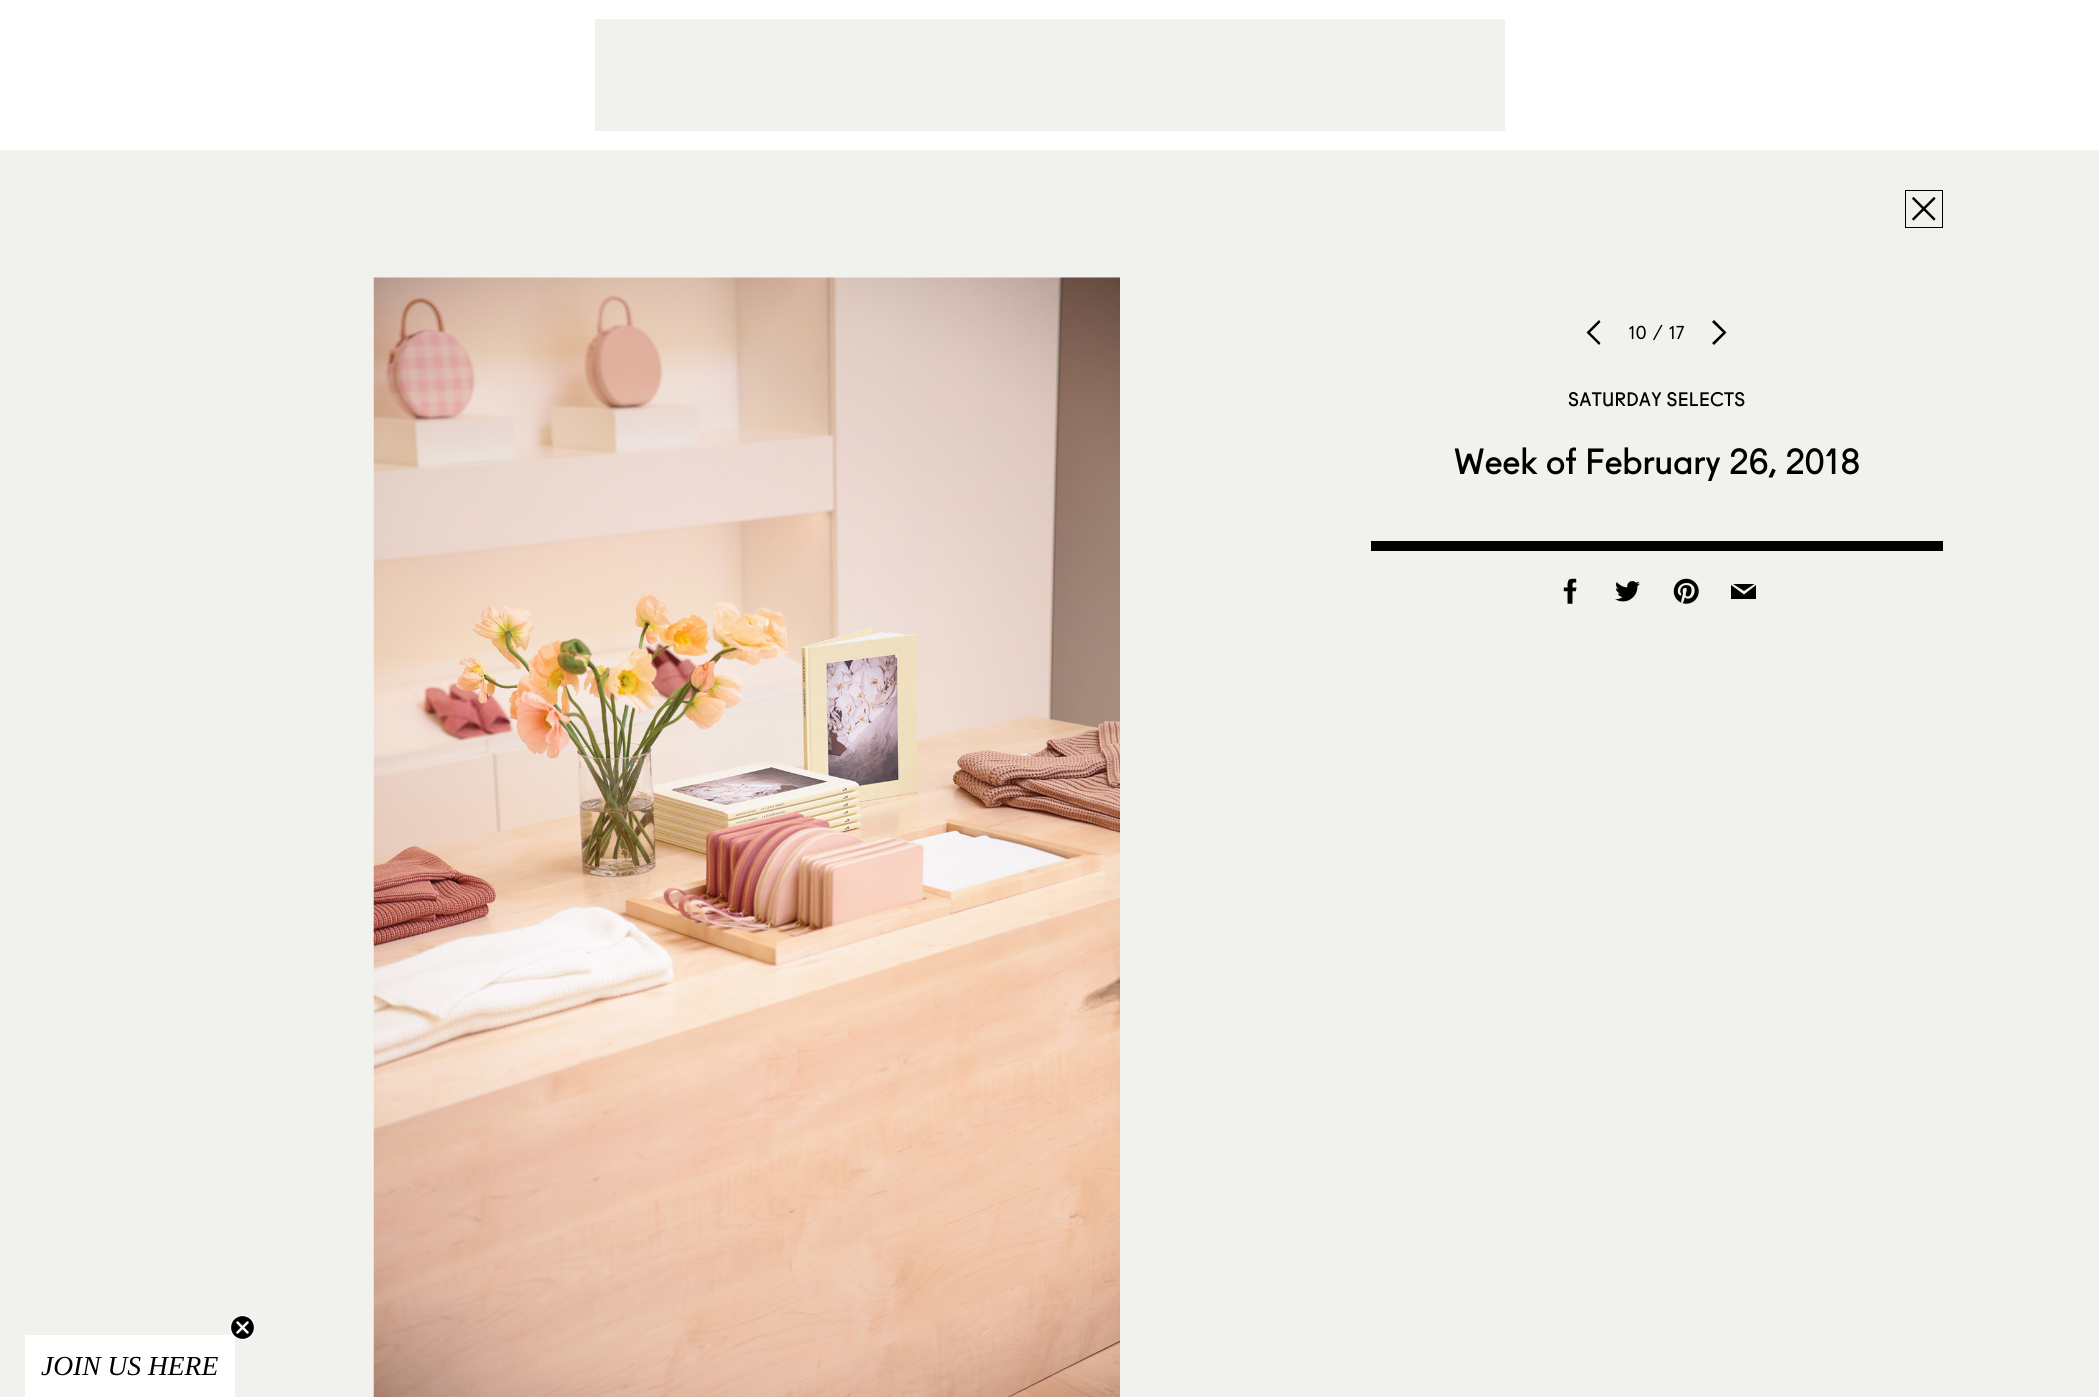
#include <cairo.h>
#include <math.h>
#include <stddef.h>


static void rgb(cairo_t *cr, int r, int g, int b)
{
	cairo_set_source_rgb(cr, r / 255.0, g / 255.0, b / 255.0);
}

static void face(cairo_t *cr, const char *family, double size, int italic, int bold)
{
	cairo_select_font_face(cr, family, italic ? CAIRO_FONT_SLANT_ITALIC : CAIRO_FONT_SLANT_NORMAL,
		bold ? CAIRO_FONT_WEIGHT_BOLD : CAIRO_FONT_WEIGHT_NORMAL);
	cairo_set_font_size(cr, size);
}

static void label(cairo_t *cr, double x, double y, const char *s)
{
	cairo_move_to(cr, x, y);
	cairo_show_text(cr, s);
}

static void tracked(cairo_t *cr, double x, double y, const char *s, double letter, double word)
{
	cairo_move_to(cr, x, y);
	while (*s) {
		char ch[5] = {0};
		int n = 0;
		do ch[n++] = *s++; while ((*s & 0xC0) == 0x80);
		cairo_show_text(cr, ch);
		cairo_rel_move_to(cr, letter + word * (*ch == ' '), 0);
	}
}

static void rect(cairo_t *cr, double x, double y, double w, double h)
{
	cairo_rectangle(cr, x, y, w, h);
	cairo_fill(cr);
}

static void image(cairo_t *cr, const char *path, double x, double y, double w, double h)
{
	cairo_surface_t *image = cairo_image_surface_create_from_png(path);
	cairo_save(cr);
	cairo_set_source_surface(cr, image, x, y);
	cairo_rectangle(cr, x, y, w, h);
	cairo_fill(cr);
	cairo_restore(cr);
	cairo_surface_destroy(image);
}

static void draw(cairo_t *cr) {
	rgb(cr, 241, 241, 237);
	cairo_paint(cr);
	rgb(cr, 255, 255, 255);
	rect(cr, 0, 0, 2099, 150);
	rgb(cr, 241, 241, 237);
	rect(cr, 595, 19, 910, 112);
	cairo_rectangle(cr, 1905.5, 190.5, 37, 37);
	rgb(cr, 0, 0, 0);
	cairo_set_line_width(cr, 1);
	cairo_stroke(cr);
	image(cr, "image0.png", 1911, 196, 25, 25);
	image(cr, "image1.png", 373, 277, 747, 1120);
	cairo_new_path(cr);
	cairo_move_to(cr, 1600.5, 343);
	cairo_line_to(cr, 1589, 331.5);
	cairo_line_to(cr, 1589, 333.5);
	cairo_line_to(cr, 1600.5, 322);
	cairo_line_to(cr, 1599, 320);
	cairo_line_to(cr, 1586.5, 332.5);
	cairo_line_to(cr, 1599, 345);
	cairo_close_path(cr);
	cairo_fill(cr);
	face(cr, "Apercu", 18.75, 0, 0);
	tracked(cr, 1628, 339, "10 / 17", 0.25, 0);
	cairo_new_path(cr);
	cairo_move_to(cr, 1712, 322);
	cairo_line_to(cr, 1724, 333.5);
	cairo_line_to(cr, 1724, 331.5);
	cairo_line_to(cr, 1712, 343);
	cairo_line_to(cr, 1714, 345);
	cairo_line_to(cr, 1726.5, 332.5);
	cairo_line_to(cr, 1714, 320);
	cairo_close_path(cr);
	cairo_fill(cr);
	face(cr, "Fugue", 18.75, 0, 0);
	tracked(cr, 1568, 406, "SATURDAY SELECTS", 0.25, 0);
	face(cr, "Fugue", 35, 0, 0);
	tracked(cr, 1454, 474, "Week of February 26, 2018", 0.2, 0);
	rect(cr, 1371, 541, 572, 10);
	image(cr, "image2.png", 1563, 578, 14, 26);
	image(cr, "image3.png", 1615, 581, 25, 21);
	image(cr, "image4.png", 1673, 578, 26, 26);
	cairo_new_path(cr);
	cairo_move_to(cr, 1754.5, 584);
	cairo_line_to(cr, 1733, 584);
	cairo_line_to(cr, 1744, 591);
	cairo_close_path(cr);
	cairo_move_to(cr, 1744, 594.5);
	cairo_line_to(cr, 1731, 585);
	cairo_line_to(cr, 1731, 599);
	cairo_line_to(cr, 1756, 599);
	cairo_line_to(cr, 1756, 585);
	cairo_close_path(cr);
	cairo_fill(cr);
	rgb(cr, 255, 255, 255);
	rect(cr, 25, 1335, 210, 62);
	rgb(cr, 0, 0, 0);
	cairo_arc(cr, 242.5, 1327.5, 12, 0, 2 * M_PI);
	cairo_fill_preserve(cr);
	rgb(cr, 255, 255, 255);
	cairo_set_line_width(cr, 1.2);
	cairo_stroke(cr);
	cairo_new_path(cr);
	cairo_move_to(cr, 237.5, 1322.5);
	cairo_line_to(cr, 247.5, 1332.5);
	cairo_move_to(cr, 237.5, 1332.5);
	cairo_line_to(cr, 247.5, 1322.5);
	cairo_close_path(cr);
	cairo_set_line_width(cr, 2.5);
	cairo_set_line_cap(cr, CAIRO_LINE_CAP_ROUND);
	cairo_set_line_join(cr, CAIRO_LINE_JOIN_ROUND);
	cairo_stroke(cr);
	face(cr, "Liberation Serif", 27.5, 1, 0);
	rgb(cr, 0, 0, 0);
	label(cr, 41, 1375, "JOIN US HERE");
}

int main(void) {
	cairo_surface_t *surface = cairo_image_surface_create(CAIRO_FORMAT_RGB24, 2099, 1397);
	cairo_t *cr = cairo_create(surface);
	cairo_font_options_t *options = cairo_font_options_create();
	cairo_font_options_set_hint_metrics(options, CAIRO_HINT_METRICS_OFF);
	cairo_font_options_set_hint_style(options, CAIRO_HINT_STYLE_NONE);
	cairo_set_font_options(cr, options);
	cairo_set_miter_limit(cr, 4);
	draw(cr);
	cairo_surface_write_to_png(surface, "render.png");
	cairo_font_options_destroy(options);
	cairo_destroy(cr);
	cairo_surface_destroy(surface);
	return 0;
}
